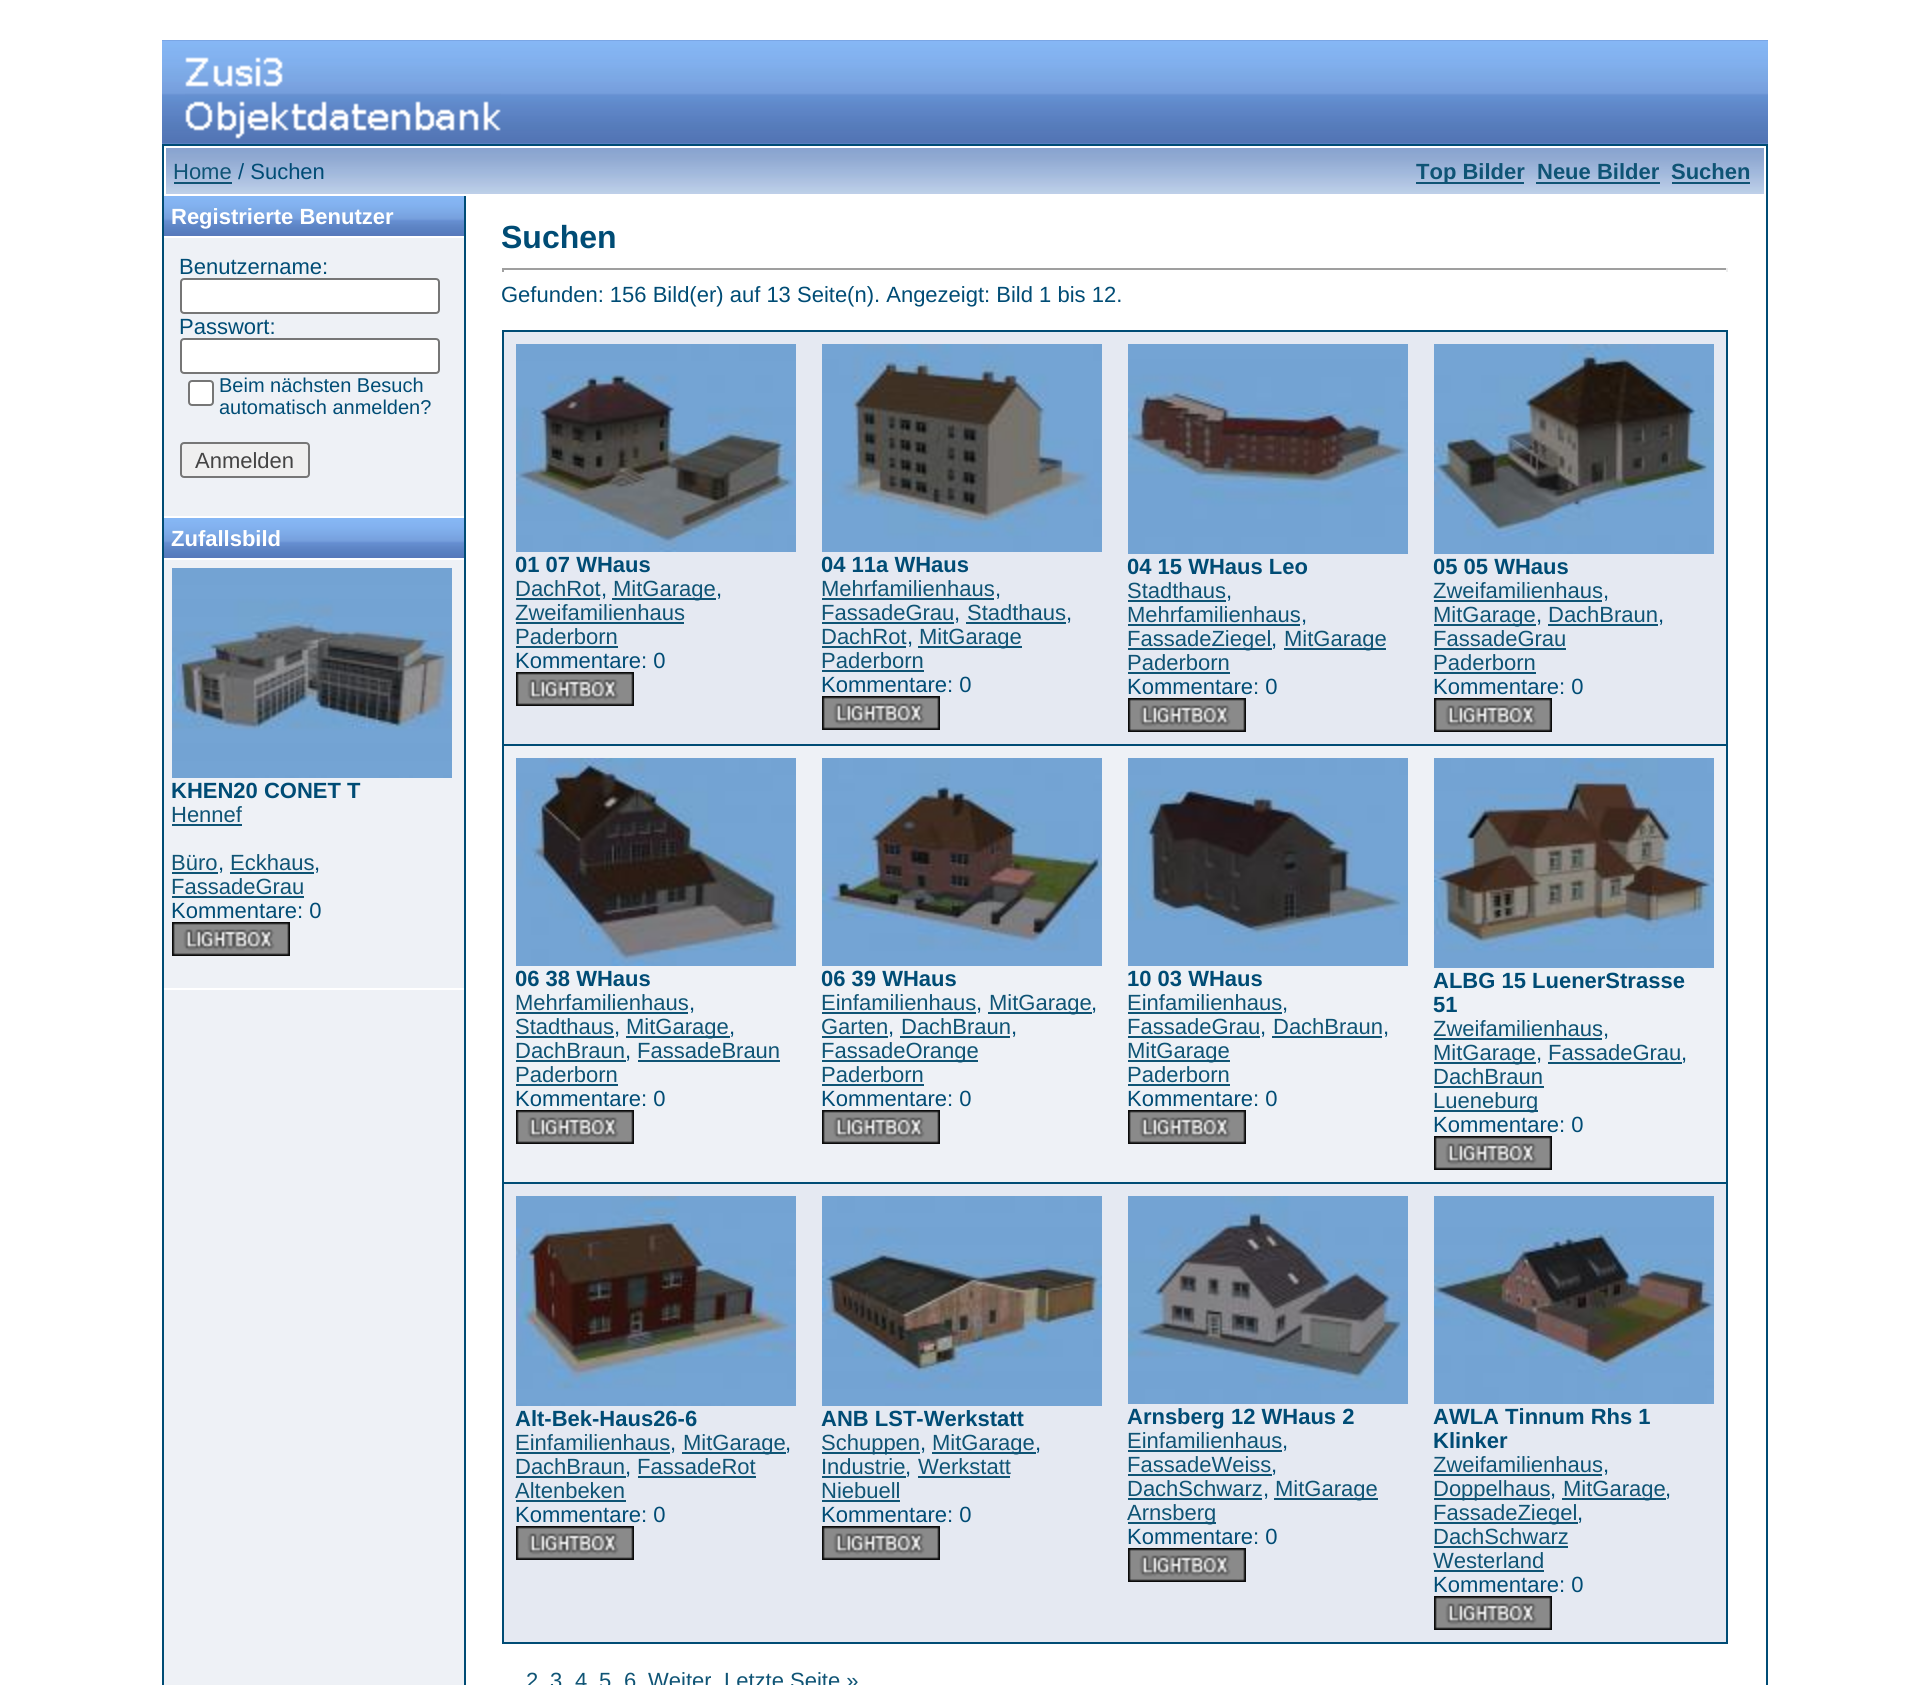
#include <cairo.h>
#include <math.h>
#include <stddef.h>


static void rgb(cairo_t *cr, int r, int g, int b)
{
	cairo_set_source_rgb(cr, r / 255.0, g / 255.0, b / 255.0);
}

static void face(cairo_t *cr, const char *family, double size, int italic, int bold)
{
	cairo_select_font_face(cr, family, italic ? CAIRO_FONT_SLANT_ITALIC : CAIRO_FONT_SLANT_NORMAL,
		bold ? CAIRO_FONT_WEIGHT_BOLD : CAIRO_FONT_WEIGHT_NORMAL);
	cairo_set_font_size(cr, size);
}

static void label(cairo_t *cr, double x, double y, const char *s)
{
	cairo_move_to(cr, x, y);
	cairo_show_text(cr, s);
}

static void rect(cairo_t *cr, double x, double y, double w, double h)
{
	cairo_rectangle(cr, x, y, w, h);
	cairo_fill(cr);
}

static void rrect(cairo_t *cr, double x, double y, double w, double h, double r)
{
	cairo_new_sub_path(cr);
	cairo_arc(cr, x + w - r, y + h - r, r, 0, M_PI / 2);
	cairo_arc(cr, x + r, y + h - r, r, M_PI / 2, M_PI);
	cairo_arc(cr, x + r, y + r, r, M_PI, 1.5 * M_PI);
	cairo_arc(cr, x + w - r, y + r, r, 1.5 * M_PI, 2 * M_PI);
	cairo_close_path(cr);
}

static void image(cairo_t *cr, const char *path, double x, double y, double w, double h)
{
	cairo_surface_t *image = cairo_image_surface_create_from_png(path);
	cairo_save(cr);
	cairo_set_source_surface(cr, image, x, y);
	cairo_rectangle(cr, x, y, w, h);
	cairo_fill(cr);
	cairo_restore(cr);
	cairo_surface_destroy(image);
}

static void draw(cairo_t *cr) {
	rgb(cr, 255, 255, 255);
	cairo_paint(cr);
	image(cr, "image0.png", 162, 40, 1606, 104);
	image(cr, "image1.png", 185, 57, 316, 82);
	rgb(cr, 0, 76, 117);
	rect(cr, 162, 144, 1606, 1541);
	rgb(cr, 255, 255, 255);
	rect(cr, 164, 146, 1602, 1539);
	image(cr, "image2.png", 166, 148, 1598, 46);
	face(cr, "Liberation Sans", 22, 0, 0);
	rgb(cr, 15, 84, 117);
	label(cr, 173, 179, "Home");
	rect(cr, 174, 182, 58, 2);
	rgb(cr, 0, 76, 117);
	label(cr, 238, 179, "/ Suchen");
	rgb(cr, 15, 84, 117);
	rect(cr, 1416, 182, 108, 2);
	face(cr, "Liberation Sans", 22, 0, 1);
	label(cr, 1416, 179, "Top Bilder");
	label(cr, 1537, 179, "Neue Bilder");
	rect(cr, 1536, 182, 124, 2);
	label(cr, 1671, 179, "Suchen");
	rect(cr, 1672, 182, 78, 2);
	rgb(cr, 238, 241, 246);
	rect(cr, 164, 238, 300, 1447);
	image(cr, "image3.png", 164, 196, 300, 40);
	rgb(cr, 255, 255, 255);
	label(cr, 171, 224, "Registrierte Benutzer");
	face(cr, "Liberation Sans", 22, 0, 0);
	rgb(cr, 0, 76, 117);
	label(cr, 179, 274, "Benutzername:");
	rgb(cr, 255, 255, 255);
	rrect(cr, 181, 279, 258, 34, 3);
	cairo_fill_preserve(cr);
	rgb(cr, 118, 118, 118);
	cairo_stroke(cr);
	rgb(cr, 0, 76, 117);
	label(cr, 179, 334, "Passwort:");
	rgb(cr, 255, 255, 255);
	rrect(cr, 181, 339, 258, 34, 3);
	cairo_fill_preserve(cr);
	rgb(cr, 118, 118, 118);
	cairo_stroke(cr);
	rgb(cr, 255, 255, 255);
	rrect(cr, 189, 381, 24, 24, 3);
	cairo_fill_preserve(cr);
	rgb(cr, 118, 118, 118);
	cairo_stroke(cr);
	face(cr, "Liberation Sans", 20, 0, 0);
	rgb(cr, 0, 76, 117);
	label(cr, 219, 392, "Beim nächsten Besuch");
	label(cr, 219, 414, "automatisch anmelden?");
	rgb(cr, 239, 239, 239);
	rrect(cr, 181, 443, 128, 34, 3);
	cairo_fill_preserve(cr);
	rgb(cr, 118, 118, 118);
	cairo_stroke(cr);
	face(cr, "Liberation Sans", 22, 0, 0);
	rgb(cr, 68, 68, 68);
	label(cr, 195, 468, "Anmelden");
	rgb(cr, 255, 255, 255);
	rect(cr, 164, 516, 300, 2);
	image(cr, "image3.png", 164, 518, 300, 40);
	face(cr, "Liberation Sans", 22, 0, 1);
	label(cr, 171, 546, "Zufallsbild");
	rect(cr, 164, 558, 300, 2);
	image(cr, "image4.png", 172, 568, 280, 210);
	rgb(cr, 0, 76, 117);
	label(cr, 171, 798, "KHEN20 CONET T");
	face(cr, "Liberation Sans", 22, 0, 0);
	rgb(cr, 15, 84, 117);
	label(cr, 171, 822, "Hennef");
	rect(cr, 172, 824, 70, 2);
	label(cr, 171, 870, "Büro");
	rect(cr, 172, 872, 46, 2);
	rgb(cr, 0, 76, 117);
	label(cr, 218, 870, ",");
	rgb(cr, 15, 84, 117);
	label(cr, 230, 870, "Eckhaus");
	rect(cr, 230, 872, 84, 2);
	rgb(cr, 0, 76, 117);
	label(cr, 314, 870, ",");
	rgb(cr, 15, 84, 117);
	label(cr, 171, 894, "FassadeGrau");
	rect(cr, 172, 896, 132, 2);
	rgb(cr, 0, 76, 117);
	label(cr, 171, 918, "Kommentare: 0");
	image(cr, "image5.png", 172, 922, 118, 34);
	rgb(cr, 255, 255, 255);
	rect(cr, 164, 988, 300, 2);
	rgb(cr, 0, 76, 117);
	rect(cr, 464, 196, 2, 1489);
	face(cr, "Liberation Sans", 32, 0, 1);
	label(cr, 501, 248, "Suchen");
	rgb(cr, 159, 159, 159);
	rect(cr, 502, 268, 1226, 2);
	rgb(cr, 238, 238, 238);
	rect(cr, 1726, 268, 2, 4);
	rgb(cr, 159, 159, 159);
	rect(cr, 502, 268, 2, 4);
	face(cr, "Liberation Sans", 22, 0, 0);
	rgb(cr, 0, 76, 117);
	label(cr, 501, 302, "Gefunden: 156 Bild(er) auf 13 Seite(n). Angezeigt: Bild 1 bis 12.");
	rect(cr, 502, 330, 1226, 1314);
	rgb(cr, 229, 233, 242);
	rect(cr, 504, 332, 1222, 412);
	image(cr, "image6.png", 516, 344, 280, 208);
	face(cr, "Liberation Sans", 22, 0, 1);
	rgb(cr, 0, 76, 117);
	label(cr, 515, 572, "01 07 WHaus");
	face(cr, "Liberation Sans", 22, 0, 0);
	rgb(cr, 15, 84, 117);
	label(cr, 515, 596, "DachRot");
	rect(cr, 516, 598, 84, 2);
	rgb(cr, 0, 76, 117);
	label(cr, 601, 596, ",");
	rgb(cr, 15, 84, 117);
	rect(cr, 612, 598, 104, 2);
	label(cr, 613, 596, "MitGarage");
	rgb(cr, 0, 76, 117);
	label(cr, 716, 596, ",");
	rgb(cr, 15, 84, 117);
	label(cr, 515, 620, "Zweifamilienhaus");
	rect(cr, 516, 622, 168, 2);
	label(cr, 515, 644, "Paderborn");
	rect(cr, 516, 646, 102, 2);
	rgb(cr, 0, 76, 117);
	label(cr, 515, 668, "Kommentare: 0");
	image(cr, "image5.png", 516, 672, 118, 34);
	image(cr, "image7.png", 822, 344, 280, 208);
	face(cr, "Liberation Sans", 22, 0, 1);
	label(cr, 821, 572, "04 11a WHaus");
	face(cr, "Liberation Sans", 22, 0, 0);
	rgb(cr, 15, 84, 117);
	label(cr, 821, 596, "Mehrfamilienhaus");
	rect(cr, 822, 598, 172, 2);
	rgb(cr, 0, 76, 117);
	label(cr, 995, 596, ",");
	rgb(cr, 15, 84, 117);
	label(cr, 821, 620, "FassadeGrau");
	rect(cr, 822, 622, 132, 2);
	rgb(cr, 0, 76, 117);
	label(cr, 954, 620, ",");
	rgb(cr, 15, 84, 117);
	label(cr, 967, 620, "Stadthaus");
	rect(cr, 966, 622, 100, 2);
	rgb(cr, 0, 76, 117);
	label(cr, 1066, 620, ",");
	rgb(cr, 15, 84, 117);
	label(cr, 821, 644, "DachRot");
	rect(cr, 822, 646, 84, 2);
	rgb(cr, 0, 76, 117);
	label(cr, 907, 644, ",");
	rgb(cr, 15, 84, 117);
	rect(cr, 918, 646, 104, 2);
	label(cr, 919, 644, "MitGarage");
	label(cr, 821, 668, "Paderborn");
	rect(cr, 822, 670, 102, 2);
	rgb(cr, 0, 76, 117);
	label(cr, 821, 692, "Kommentare: 0");
	image(cr, "image5.png", 822, 696, 118, 34);
	image(cr, "image8.png", 1128, 344, 280, 210);
	face(cr, "Liberation Sans", 22, 0, 1);
	label(cr, 1127, 574, "04 15 WHaus Leo");
	face(cr, "Liberation Sans", 22, 0, 0);
	rgb(cr, 15, 84, 117);
	label(cr, 1127, 598, "Stadthaus");
	rect(cr, 1128, 600, 98, 2);
	rgb(cr, 0, 76, 117);
	label(cr, 1226, 598, ",");
	rgb(cr, 15, 84, 117);
	label(cr, 1127, 622, "Mehrfamilienhaus");
	rect(cr, 1128, 624, 172, 2);
	rgb(cr, 0, 76, 117);
	label(cr, 1301, 622, ",");
	rgb(cr, 15, 84, 117);
	rect(cr, 1128, 648, 144, 2);
	label(cr, 1127, 646, "FassadeZiegel");
	rgb(cr, 0, 76, 117);
	label(cr, 1271, 646, ",");
	rgb(cr, 15, 84, 117);
	rect(cr, 1284, 648, 102, 2);
	label(cr, 1284, 646, "MitGarage");
	label(cr, 1127, 670, "Paderborn");
	rect(cr, 1128, 672, 102, 2);
	rgb(cr, 0, 76, 117);
	label(cr, 1127, 694, "Kommentare: 0");
	image(cr, "image5.png", 1128, 698, 118, 34);
	image(cr, "image9.png", 1434, 344, 280, 210);
	face(cr, "Liberation Sans", 22, 0, 1);
	label(cr, 1433, 574, "05 05 WHaus");
	face(cr, "Liberation Sans", 22, 0, 0);
	rgb(cr, 15, 84, 117);
	label(cr, 1433, 598, "Zweifamilienhaus");
	rect(cr, 1434, 600, 168, 2);
	rgb(cr, 0, 76, 117);
	label(cr, 1603, 598, ",");
	rgb(cr, 15, 84, 117);
	rect(cr, 1434, 624, 102, 2);
	label(cr, 1433, 622, "MitGarage");
	rgb(cr, 0, 76, 117);
	label(cr, 1536, 622, ",");
	rgb(cr, 15, 84, 117);
	label(cr, 1548, 622, "DachBraun");
	rect(cr, 1548, 624, 110, 2);
	rgb(cr, 0, 76, 117);
	label(cr, 1658, 622, ",");
	rgb(cr, 15, 84, 117);
	label(cr, 1433, 646, "FassadeGrau");
	rect(cr, 1434, 648, 132, 2);
	label(cr, 1433, 670, "Paderborn");
	rect(cr, 1434, 672, 102, 2);
	rgb(cr, 0, 76, 117);
	label(cr, 1433, 694, "Kommentare: 0");
	image(cr, "image5.png", 1434, 698, 118, 34);
	rgb(cr, 238, 241, 246);
	rect(cr, 504, 746, 1222, 436);
	image(cr, "image10.png", 516, 758, 280, 208);
	face(cr, "Liberation Sans", 22, 0, 1);
	rgb(cr, 0, 76, 117);
	label(cr, 515, 986, "06 38 WHaus");
	face(cr, "Liberation Sans", 22, 0, 0);
	rgb(cr, 15, 84, 117);
	label(cr, 515, 1010, "Mehrfamilienhaus");
	rect(cr, 516, 1012, 172, 2);
	rgb(cr, 0, 76, 117);
	label(cr, 689, 1010, ",");
	rgb(cr, 15, 84, 117);
	label(cr, 515, 1034, "Stadthaus");
	rect(cr, 516, 1036, 98, 2);
	rgb(cr, 0, 76, 117);
	label(cr, 614, 1034, ",");
	rgb(cr, 15, 84, 117);
	rect(cr, 626, 1036, 104, 2);
	label(cr, 626, 1034, "MitGarage");
	rgb(cr, 0, 76, 117);
	label(cr, 729, 1034, ",");
	rgb(cr, 15, 84, 117);
	label(cr, 515, 1058, "DachBraun");
	rect(cr, 516, 1060, 110, 2);
	rgb(cr, 0, 76, 117);
	label(cr, 625, 1058, ",");
	rgb(cr, 15, 84, 117);
	label(cr, 637, 1058, "FassadeBraun");
	rect(cr, 638, 1060, 142, 2);
	label(cr, 515, 1082, "Paderborn");
	rect(cr, 516, 1084, 102, 2);
	rgb(cr, 0, 76, 117);
	label(cr, 515, 1106, "Kommentare: 0");
	image(cr, "image5.png", 516, 1110, 118, 34);
	image(cr, "image11.png", 822, 758, 280, 208);
	face(cr, "Liberation Sans", 22, 0, 1);
	label(cr, 821, 986, "06 39 WHaus");
	face(cr, "Liberation Sans", 22, 0, 0);
	rgb(cr, 15, 84, 117);
	label(cr, 821, 1010, "Einfamilienhaus");
	rect(cr, 822, 1012, 154, 2);
	rgb(cr, 0, 76, 117);
	label(cr, 976, 1010, ",");
	rgb(cr, 15, 84, 117);
	rect(cr, 988, 1012, 104, 2);
	label(cr, 989, 1010, "MitGarage");
	rgb(cr, 0, 76, 117);
	label(cr, 1091, 1010, ",");
	rgb(cr, 15, 84, 117);
	label(cr, 821, 1034, "Garten");
	rect(cr, 822, 1036, 66, 2);
	rgb(cr, 0, 76, 117);
	label(cr, 888, 1034, ",");
	rgb(cr, 15, 84, 117);
	label(cr, 901, 1034, "DachBraun");
	rect(cr, 900, 1036, 110, 2);
	rgb(cr, 0, 76, 117);
	label(cr, 1011, 1034, ",");
	rgb(cr, 15, 84, 117);
	rect(cr, 822, 1060, 156, 2);
	label(cr, 821, 1058, "FassadeOrange");
	label(cr, 821, 1082, "Paderborn");
	rect(cr, 822, 1084, 102, 2);
	rgb(cr, 0, 76, 117);
	label(cr, 821, 1106, "Kommentare: 0");
	image(cr, "image5.png", 822, 1110, 118, 34);
	image(cr, "image12.png", 1128, 758, 280, 208);
	face(cr, "Liberation Sans", 22, 0, 1);
	label(cr, 1127, 986, "10 03 WHaus");
	face(cr, "Liberation Sans", 22, 0, 0);
	rgb(cr, 15, 84, 117);
	label(cr, 1127, 1010, "Einfamilienhaus");
	rect(cr, 1128, 1012, 154, 2);
	rgb(cr, 0, 76, 117);
	label(cr, 1282, 1010, ",");
	rgb(cr, 15, 84, 117);
	label(cr, 1127, 1034, "FassadeGrau");
	rect(cr, 1128, 1036, 132, 2);
	rgb(cr, 0, 76, 117);
	label(cr, 1260, 1034, ",");
	rgb(cr, 15, 84, 117);
	label(cr, 1273, 1034, "DachBraun");
	rect(cr, 1272, 1036, 110, 2);
	rgb(cr, 0, 76, 117);
	label(cr, 1383, 1034, ",");
	rgb(cr, 15, 84, 117);
	rect(cr, 1128, 1060, 102, 2);
	label(cr, 1127, 1058, "MitGarage");
	label(cr, 1127, 1082, "Paderborn");
	rect(cr, 1128, 1084, 102, 2);
	rgb(cr, 0, 76, 117);
	label(cr, 1127, 1106, "Kommentare: 0");
	image(cr, "image5.png", 1128, 1110, 118, 34);
	image(cr, "image13.png", 1434, 758, 280, 210);
	face(cr, "Liberation Sans", 22, 0, 1);
	label(cr, 1433, 988, "ALBG 15 LuenerStrasse");
	label(cr, 1433, 1012, "51");
	face(cr, "Liberation Sans", 22, 0, 0);
	rgb(cr, 15, 84, 117);
	label(cr, 1433, 1036, "Zweifamilienhaus");
	rect(cr, 1434, 1038, 168, 2);
	rgb(cr, 0, 76, 117);
	label(cr, 1603, 1036, ",");
	rgb(cr, 15, 84, 117);
	rect(cr, 1434, 1062, 102, 2);
	label(cr, 1433, 1060, "MitGarage");
	rgb(cr, 0, 76, 117);
	label(cr, 1536, 1060, ",");
	rgb(cr, 15, 84, 117);
	label(cr, 1548, 1060, "FassadeGrau");
	rect(cr, 1548, 1062, 134, 2);
	rgb(cr, 0, 76, 117);
	label(cr, 1681, 1060, ",");
	rgb(cr, 15, 84, 117);
	label(cr, 1433, 1084, "DachBraun");
	rect(cr, 1434, 1086, 110, 2);
	rect(cr, 1434, 1110, 104, 2);
	label(cr, 1433, 1108, "Lueneburg");
	rgb(cr, 0, 76, 117);
	label(cr, 1433, 1132, "Kommentare: 0");
	image(cr, "image5.png", 1434, 1136, 118, 34);
	rgb(cr, 229, 233, 242);
	rect(cr, 504, 1184, 1222, 458);
	image(cr, "image14.png", 516, 1196, 280, 210);
	face(cr, "Liberation Sans", 22, 0, 1);
	rgb(cr, 0, 76, 117);
	label(cr, 515, 1426, "Alt-Bek-Haus26-6");
	face(cr, "Liberation Sans", 22, 0, 0);
	rgb(cr, 15, 84, 117);
	label(cr, 515, 1450, "Einfamilienhaus");
	rect(cr, 516, 1452, 154, 2);
	rgb(cr, 0, 76, 117);
	label(cr, 670, 1450, ",");
	rgb(cr, 15, 84, 117);
	rect(cr, 682, 1452, 104, 2);
	label(cr, 683, 1450, "MitGarage");
	rgb(cr, 0, 76, 117);
	label(cr, 785, 1450, ",");
	rgb(cr, 15, 84, 117);
	label(cr, 515, 1474, "DachBraun");
	rect(cr, 516, 1476, 110, 2);
	rgb(cr, 0, 76, 117);
	label(cr, 625, 1474, ",");
	rgb(cr, 15, 84, 117);
	label(cr, 637, 1474, "FassadeRot");
	rect(cr, 638, 1476, 118, 2);
	label(cr, 515, 1498, "Altenbeken");
	rect(cr, 516, 1500, 110, 2);
	rgb(cr, 0, 76, 117);
	label(cr, 515, 1522, "Kommentare: 0");
	image(cr, "image5.png", 516, 1526, 118, 34);
	image(cr, "image15.png", 822, 1196, 280, 210);
	face(cr, "Liberation Sans", 22, 0, 1);
	label(cr, 821, 1426, "ANB LST-Werkstatt");
	rgb(cr, 15, 84, 117);
	rect(cr, 822, 1452, 98, 2);
	face(cr, "Liberation Sans", 22, 0, 0);
	label(cr, 821, 1450, "Schuppen");
	rgb(cr, 0, 76, 117);
	label(cr, 920, 1450, ",");
	rgb(cr, 15, 84, 117);
	rect(cr, 932, 1452, 104, 2);
	label(cr, 932, 1450, "MitGarage");
	rgb(cr, 0, 76, 117);
	label(cr, 1035, 1450, ",");
	rgb(cr, 15, 84, 117);
	label(cr, 821, 1474, "Industrie");
	rect(cr, 822, 1476, 84, 2);
	rgb(cr, 0, 76, 117);
	label(cr, 905, 1474, ",");
	rgb(cr, 15, 84, 117);
	label(cr, 918, 1474, "Werkstatt");
	rect(cr, 918, 1476, 92, 2);
	label(cr, 821, 1498, "Niebuell");
	rect(cr, 822, 1500, 78, 2);
	rgb(cr, 0, 76, 117);
	label(cr, 821, 1522, "Kommentare: 0");
	image(cr, "image5.png", 822, 1526, 118, 34);
	image(cr, "image16.png", 1128, 1196, 280, 208);
	face(cr, "Liberation Sans", 22, 0, 1);
	label(cr, 1127, 1424, "Arnsberg 12 WHaus 2");
	face(cr, "Liberation Sans", 22, 0, 0);
	rgb(cr, 15, 84, 117);
	label(cr, 1127, 1448, "Einfamilienhaus");
	rect(cr, 1128, 1450, 154, 2);
	rgb(cr, 0, 76, 117);
	label(cr, 1282, 1448, ",");
	rgb(cr, 15, 84, 117);
	label(cr, 1127, 1472, "FassadeWeiss");
	rect(cr, 1128, 1474, 144, 2);
	rgb(cr, 0, 76, 117);
	label(cr, 1271, 1472, ",");
	rgb(cr, 15, 84, 117);
	label(cr, 1127, 1496, "DachSchwarz");
	rect(cr, 1128, 1498, 134, 2);
	rgb(cr, 0, 76, 117);
	label(cr, 1263, 1496, ",");
	rgb(cr, 15, 84, 117);
	rect(cr, 1274, 1498, 104, 2);
	label(cr, 1275, 1496, "MitGarage");
	rect(cr, 1128, 1522, 88, 2);
	label(cr, 1127, 1520, "Arnsberg");
	rgb(cr, 0, 76, 117);
	label(cr, 1127, 1544, "Kommentare: 0");
	image(cr, "image5.png", 1128, 1548, 118, 34);
	image(cr, "image17.png", 1434, 1196, 280, 208);
	face(cr, "Liberation Sans", 22, 0, 1);
	label(cr, 1433, 1424, "AWLA Tinnum Rhs 1");
	label(cr, 1433, 1448, "Klinker");
	face(cr, "Liberation Sans", 22, 0, 0);
	rgb(cr, 15, 84, 117);
	label(cr, 1433, 1472, "Zweifamilienhaus");
	rect(cr, 1434, 1474, 168, 2);
	rgb(cr, 0, 76, 117);
	label(cr, 1603, 1472, ",");
	rgb(cr, 15, 84, 117);
	rect(cr, 1434, 1498, 116, 2);
	label(cr, 1433, 1496, "Doppelhaus");
	rgb(cr, 0, 76, 117);
	label(cr, 1550, 1496, ",");
	rgb(cr, 15, 84, 117);
	rect(cr, 1562, 1498, 104, 2);
	label(cr, 1563, 1496, "MitGarage");
	rgb(cr, 0, 76, 117);
	label(cr, 1665, 1496, ",");
	rgb(cr, 15, 84, 117);
	rect(cr, 1434, 1522, 144, 2);
	label(cr, 1433, 1520, "FassadeZiegel");
	rgb(cr, 0, 76, 117);
	label(cr, 1577, 1520, ",");
	rgb(cr, 15, 84, 117);
	label(cr, 1433, 1544, "DachSchwarz");
	rect(cr, 1434, 1546, 134, 2);
	label(cr, 1433, 1568, "Westerland");
	rect(cr, 1434, 1570, 110, 2);
	rgb(cr, 0, 76, 117);
	label(cr, 1433, 1592, "Kommentare: 0");
	image(cr, "image5.png", 1434, 1596, 118, 34);
	rgb(cr, 15, 84, 117);
	label(cr, 526, 1688, "2");
	label(cr, 550, 1688, "3");
	label(cr, 575, 1688, "4");
	label(cr, 599, 1688, "5");
	label(cr, 624, 1688, "6");
	label(cr, 648, 1688, "Weiter");
	label(cr, 724, 1688, "Letzte Seite »");
}

int main(void) {
	cairo_surface_t *surface = cairo_image_surface_create(CAIRO_FORMAT_RGB24, 1928, 1685);
	cairo_t *cr = cairo_create(surface);
	cairo_font_options_t *options = cairo_font_options_create();
	cairo_font_options_set_hint_metrics(options, CAIRO_HINT_METRICS_OFF);
	cairo_font_options_set_hint_style(options, CAIRO_HINT_STYLE_NONE);
	cairo_set_font_options(cr, options);
	cairo_set_miter_limit(cr, 4);
	draw(cr);
	cairo_surface_write_to_png(surface, "render.png");
	cairo_font_options_destroy(options);
	cairo_destroy(cr);
	cairo_surface_destroy(surface);
	return 0;
}
